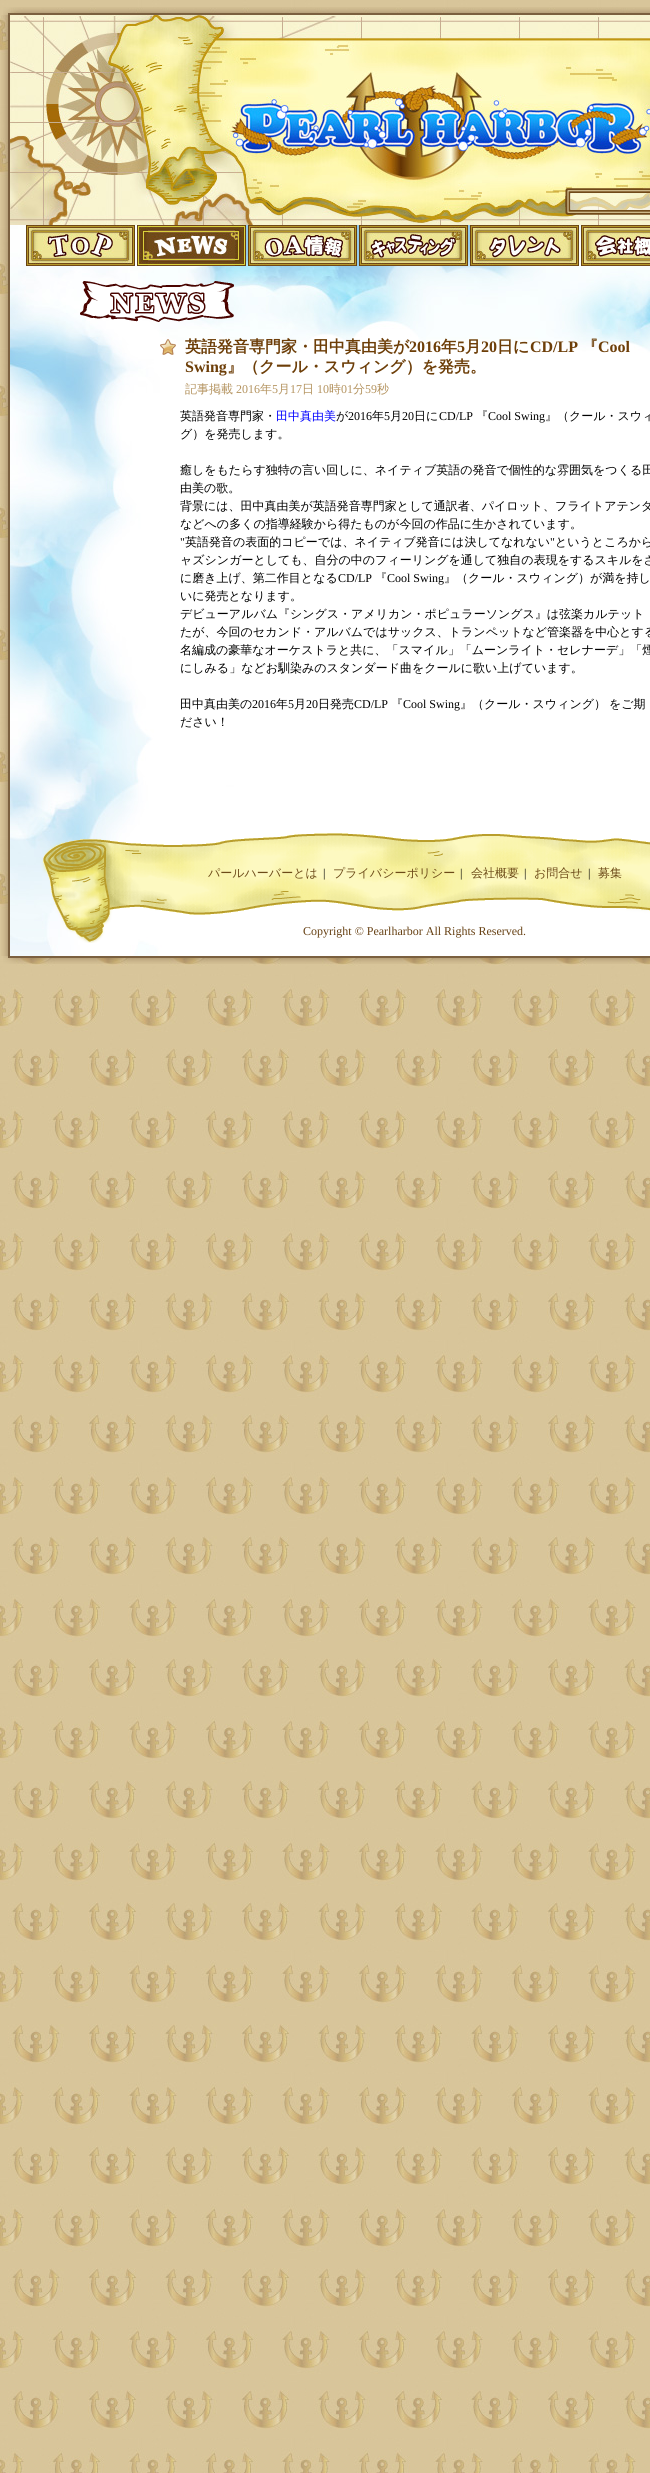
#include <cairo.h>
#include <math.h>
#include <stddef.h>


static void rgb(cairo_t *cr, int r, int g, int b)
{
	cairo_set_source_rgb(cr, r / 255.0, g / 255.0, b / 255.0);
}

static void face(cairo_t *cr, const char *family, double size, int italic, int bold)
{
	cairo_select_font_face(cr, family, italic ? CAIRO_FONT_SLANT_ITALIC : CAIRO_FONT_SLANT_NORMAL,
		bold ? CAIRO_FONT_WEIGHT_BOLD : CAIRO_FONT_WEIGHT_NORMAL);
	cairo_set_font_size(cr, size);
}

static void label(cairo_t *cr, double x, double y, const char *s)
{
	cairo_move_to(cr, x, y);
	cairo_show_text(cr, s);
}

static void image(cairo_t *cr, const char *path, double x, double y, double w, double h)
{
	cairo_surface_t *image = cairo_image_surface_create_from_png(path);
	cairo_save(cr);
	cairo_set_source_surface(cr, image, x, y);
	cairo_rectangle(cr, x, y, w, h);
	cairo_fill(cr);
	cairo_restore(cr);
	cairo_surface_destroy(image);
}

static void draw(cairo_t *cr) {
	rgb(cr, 255, 255, 255);
	cairo_paint(cr);
	image(cr, "image0.png", 0, 0, 650, 2473);
	image(cr, "image1.png", 3, 7, 647, 8);
	image(cr, "image2.png", 1, 15, 9, 941);
	image(cr, "image3.png", 10, 15, 640, 210);
	image(cr, "image4.png", 565, 188, 85, 27);
	image(cr, "image5.png", 10, 225, 640, 731);
	image(cr, "image6.png", 26, 225, 109, 41);
	image(cr, "image7.png", 137, 225, 109, 41);
	image(cr, "image8.png", 248, 225, 109, 41);
	image(cr, "image9.png", 359, 225, 109, 41);
	image(cr, "image10.png", 470, 225, 109, 41);
	image(cr, "image11.png", 581, 225, 69, 41);
	image(cr, "image12.png", 80, 281, 154, 41);
	image(cr, "image13.png", 160, 339, 16, 16);
	face(cr, "WenQuanYi Zen Hei", 16, 0, 1);
	rgb(cr, 109, 62, 8);
	label(cr, 185, 352, "英語発音専門家・田中真由美が");
	face(cr, "Liberation Serif", 16, 0, 1);
	label(cr, 409, 352, "2016");
	face(cr, "WenQuanYi Zen Hei", 16, 0, 1);
	label(cr, 441, 352, "年");
	face(cr, "Liberation Serif", 16, 0, 1);
	label(cr, 457, 352, "5");
	face(cr, "WenQuanYi Zen Hei", 16, 0, 1);
	label(cr, 465, 352, "月");
	face(cr, "Liberation Serif", 16, 0, 1);
	label(cr, 481, 352, "20");
	face(cr, "WenQuanYi Zen Hei", 16, 0, 1);
	label(cr, 497, 352, "日に");
	face(cr, "Liberation Serif", 16, 0, 1);
	label(cr, 530, 352, "CD/LP");
	face(cr, "WenQuanYi Zen Hei", 16, 0, 1);
	label(cr, 582, 352, "『");
	face(cr, "Liberation Serif", 16, 0, 1);
	label(cr, 598, 352, "Cool");
	label(cr, 185, 372, "Swing");
	face(cr, "WenQuanYi Zen Hei", 16, 0, 1);
	label(cr, 227, 372, "』（クール・スウィング）を発売。");
	face(cr, "WenQuanYi Zen Hei Medium", 12, 0, 0);
	rgb(cr, 180, 147, 95);
	label(cr, 185, 393, "記事掲載");
	face(cr, "Liberation Serif", 12, 0, 0);
	label(cr, 236, 393, "2016");
	face(cr, "WenQuanYi Zen Hei Medium", 12, 0, 0);
	label(cr, 260, 393, "年");
	face(cr, "Liberation Serif", 12, 0, 0);
	label(cr, 272, 393, "5");
	face(cr, "WenQuanYi Zen Hei Medium", 12, 0, 0);
	label(cr, 278, 393, "月");
	face(cr, "Liberation Serif", 12, 0, 0);
	label(cr, 290, 393, "17");
	face(cr, "WenQuanYi Zen Hei Medium", 12, 0, 0);
	label(cr, 302, 393, "日");
	face(cr, "Liberation Serif", 12, 0, 0);
	label(cr, 317, 393, "10");
	face(cr, "WenQuanYi Zen Hei Medium", 12, 0, 0);
	label(cr, 329, 393, "時");
	face(cr, "Liberation Serif", 12, 0, 0);
	label(cr, 341, 393, "01");
	face(cr, "WenQuanYi Zen Hei Medium", 12, 0, 0);
	label(cr, 353, 393, "分");
	face(cr, "Liberation Serif", 12, 0, 0);
	label(cr, 365, 393, "59");
	face(cr, "WenQuanYi Zen Hei Medium", 12, 0, 0);
	label(cr, 377, 393, "秒");
	rgb(cr, 0, 0, 0);
	label(cr, 180, 420, "英語発音専門家・");
	rgb(cr, 0, 0, 255);
	label(cr, 276, 420, "田中真由美");
	rgb(cr, 0, 0, 0);
	label(cr, 336, 420, "が");
	face(cr, "Liberation Serif", 12, 0, 0);
	label(cr, 348, 420, "2016");
	face(cr, "WenQuanYi Zen Hei Medium", 12, 0, 0);
	label(cr, 372, 420, "年");
	face(cr, "Liberation Serif", 12, 0, 0);
	label(cr, 384, 420, "5");
	face(cr, "WenQuanYi Zen Hei Medium", 12, 0, 0);
	label(cr, 390, 420, "月");
	face(cr, "Liberation Serif", 12, 0, 0);
	label(cr, 402, 420, "20");
	face(cr, "WenQuanYi Zen Hei Medium", 12, 0, 0);
	label(cr, 414, 420, "日に");
	face(cr, "Liberation Serif", 12, 0, 0);
	label(cr, 439, 420, "CD/LP");
	face(cr, "WenQuanYi Zen Hei Medium", 12, 0, 0);
	label(cr, 476, 420, "『");
	face(cr, "Liberation Serif", 12, 0, 0);
	label(cr, 488, 420, "Cool Swing");
	face(cr, "WenQuanYi Zen Hei Medium", 12, 0, 0);
	label(cr, 545, 420, "』（クール・スウィ");
	label(cr, 180, 438, "グ）を発売します。");
	label(cr, 180, 474, "癒しをもたらす独特の言い回しに、ネイティブ英語の発音で個性的な雰囲気をつくる田");
	label(cr, 180, 492, "由美の歌。");
	label(cr, 180, 510, "背景には、田中真由美が英語発音専門家として通訳者、パイロット、フライトアテンダ");
	label(cr, 180, 528, "などへの多くの指導経験から得たものが今回の作品に生かされています。");
	face(cr, "Liberation Serif", 12, 0, 0);
	label(cr, 180, 546, "\"");
	face(cr, "WenQuanYi Zen Hei Medium", 12, 0, 0);
	label(cr, 185, 546, "英語発音の表面的コピーでは、ネイティブ発音には決してなれない");
	face(cr, "Liberation Serif", 12, 0, 0);
	label(cr, 550, 546, "\"");
	face(cr, "WenQuanYi Zen Hei Medium", 12, 0, 0);
	label(cr, 555, 546, "というところから");
	label(cr, 180, 564, "ャズシンガーとしても、自分の中のフィーリングを通して独自の表現をするスキルをさ");
	label(cr, 180, 582, "に磨き上げ、第二作目となる");
	face(cr, "Liberation Serif", 12, 0, 0);
	label(cr, 338, 582, "CD/LP");
	face(cr, "WenQuanYi Zen Hei Medium", 12, 0, 0);
	label(cr, 375, 582, "『");
	face(cr, "Liberation Serif", 12, 0, 0);
	label(cr, 387, 582, "Cool Swing");
	face(cr, "WenQuanYi Zen Hei Medium", 12, 0, 0);
	label(cr, 444, 582, "』（クール・スウィング）が満を持し");
	label(cr, 180, 600, "いに発売となります。");
	label(cr, 180, 618, "デビューアルバム『シングス・アメリカン・ポピュラーソングス』は弦楽カルテット");
	label(cr, 180, 636, "たが、今回のセカンド・アルバムではサックス、トランペットなど管楽器を中心とする");
	label(cr, 180, 654, "名編成の豪華なオーケストラと共に、「スマイル」「ムーンライト・セレナーデ」「煙");
	label(cr, 180, 672, "にしみる」などお馴染みのスタンダード曲をクールに歌い上げています。");
	label(cr, 180, 708, "田中真由美の");
	face(cr, "Liberation Serif", 12, 0, 0);
	label(cr, 252, 708, "2016");
	face(cr, "WenQuanYi Zen Hei Medium", 12, 0, 0);
	label(cr, 276, 708, "年");
	face(cr, "Liberation Serif", 12, 0, 0);
	label(cr, 288, 708, "5");
	face(cr, "WenQuanYi Zen Hei Medium", 12, 0, 0);
	label(cr, 294, 708, "月");
	face(cr, "Liberation Serif", 12, 0, 0);
	label(cr, 306, 708, "20");
	face(cr, "WenQuanYi Zen Hei Medium", 12, 0, 0);
	label(cr, 318, 708, "日発売");
	face(cr, "Liberation Serif", 12, 0, 0);
	label(cr, 354, 708, "CD/LP");
	face(cr, "WenQuanYi Zen Hei Medium", 12, 0, 0);
	label(cr, 391, 708, "『");
	face(cr, "Liberation Serif", 12, 0, 0);
	label(cr, 403, 708, "Cool Swing");
	face(cr, "WenQuanYi Zen Hei Medium", 12, 0, 0);
	label(cr, 460, 708, "』（クール・スウィング）");
	label(cr, 609, 708, "をご期");
	label(cr, 180, 726, "ださい！");
	image(cr, "image14.png", 41, 833, 609, 110);
	rgb(cr, 109, 75, 25);
	label(cr, 208, 877, "パールハーバーとは");
	face(cr, "Liberation Serif", 12, 0, 0);
	rgb(cr, 0, 0, 0);
	label(cr, 323, 877, "|");
	face(cr, "WenQuanYi Zen Hei Medium", 12, 0, 0);
	rgb(cr, 109, 75, 25);
	label(cr, 333, 877, "プライバシーポリシー");
	face(cr, "Liberation Serif", 12, 0, 0);
	rgb(cr, 0, 0, 0);
	label(cr, 460, 877, "|");
	face(cr, "WenQuanYi Zen Hei Medium", 12, 0, 0);
	rgb(cr, 109, 75, 25);
	label(cr, 471, 877, "会社概要");
	face(cr, "Liberation Serif", 12, 0, 0);
	rgb(cr, 0, 0, 0);
	label(cr, 524, 877, "|");
	face(cr, "WenQuanYi Zen Hei Medium", 12, 0, 0);
	rgb(cr, 109, 75, 25);
	label(cr, 534, 877, "お問合せ");
	face(cr, "Liberation Serif", 12, 0, 0);
	rgb(cr, 0, 0, 0);
	label(cr, 588, 877, "|");
	face(cr, "WenQuanYi Zen Hei Medium", 12, 0, 0);
	rgb(cr, 109, 75, 25);
	label(cr, 598, 877, "募集");
	face(cr, "Liberation Serif", 12, 0, 0);
	rgb(cr, 103, 65, 20);
	label(cr, 303, 935, "Copyright © Pearlharbor All Rights Reserved.");
	image(cr, "image15.png", 3, 956, 647, 8);
}

int main(void) {
	cairo_surface_t *surface = cairo_image_surface_create(CAIRO_FORMAT_RGB24, 650, 2473);
	cairo_t *cr = cairo_create(surface);
	cairo_font_options_t *options = cairo_font_options_create();
	cairo_font_options_set_hint_metrics(options, CAIRO_HINT_METRICS_OFF);
	cairo_font_options_set_hint_style(options, CAIRO_HINT_STYLE_NONE);
	cairo_set_font_options(cr, options);
	cairo_set_miter_limit(cr, 4);
	draw(cr);
	cairo_surface_write_to_png(surface, "render.png");
	cairo_font_options_destroy(options);
	cairo_destroy(cr);
	cairo_surface_destroy(surface);
	return 0;
}
